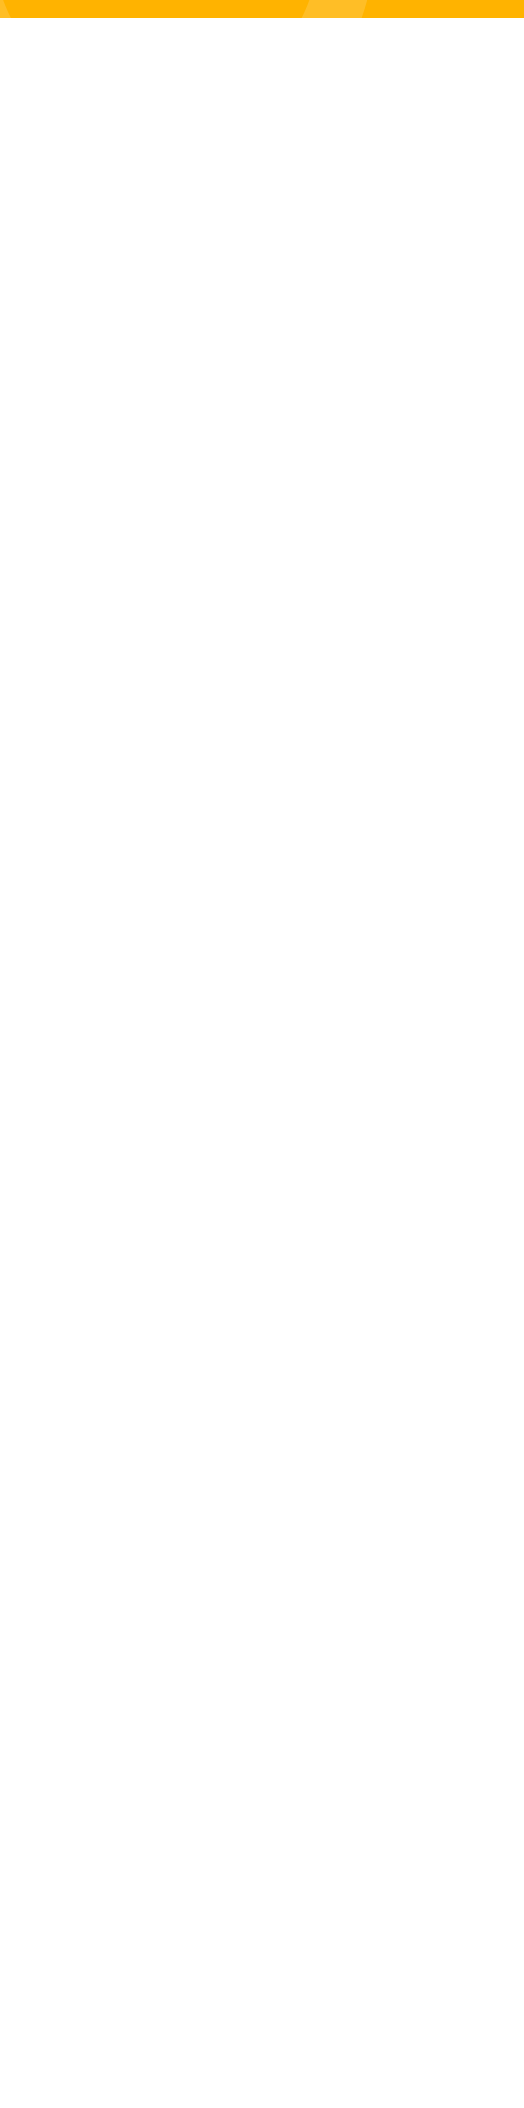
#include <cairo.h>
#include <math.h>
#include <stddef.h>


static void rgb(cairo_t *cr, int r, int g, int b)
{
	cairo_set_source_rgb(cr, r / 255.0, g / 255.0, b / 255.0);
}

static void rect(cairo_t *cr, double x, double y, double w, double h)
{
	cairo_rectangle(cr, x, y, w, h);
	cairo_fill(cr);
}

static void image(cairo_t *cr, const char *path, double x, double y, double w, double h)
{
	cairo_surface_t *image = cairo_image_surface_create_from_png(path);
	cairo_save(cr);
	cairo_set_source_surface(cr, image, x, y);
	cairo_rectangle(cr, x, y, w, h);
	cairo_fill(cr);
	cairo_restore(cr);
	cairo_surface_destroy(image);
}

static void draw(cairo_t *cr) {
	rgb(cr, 255, 255, 255);
	cairo_paint(cr);
	rgb(cr, 255, 179, 0);
	rect(cr, 0, 0, 524, 18);
	image(cr, "image0.png", 0, 0, 367, 18);
}

int main(void) {
	cairo_surface_t *surface = cairo_image_surface_create(CAIRO_FORMAT_RGB24, 524, 2108);
	cairo_t *cr = cairo_create(surface);
	cairo_font_options_t *options = cairo_font_options_create();
	cairo_font_options_set_hint_metrics(options, CAIRO_HINT_METRICS_OFF);
	cairo_font_options_set_hint_style(options, CAIRO_HINT_STYLE_NONE);
	cairo_set_font_options(cr, options);
	cairo_set_miter_limit(cr, 4);
	draw(cr);
	cairo_surface_write_to_png(surface, "render.png");
	cairo_font_options_destroy(options);
	cairo_destroy(cr);
	cairo_surface_destroy(surface);
	return 0;
}
